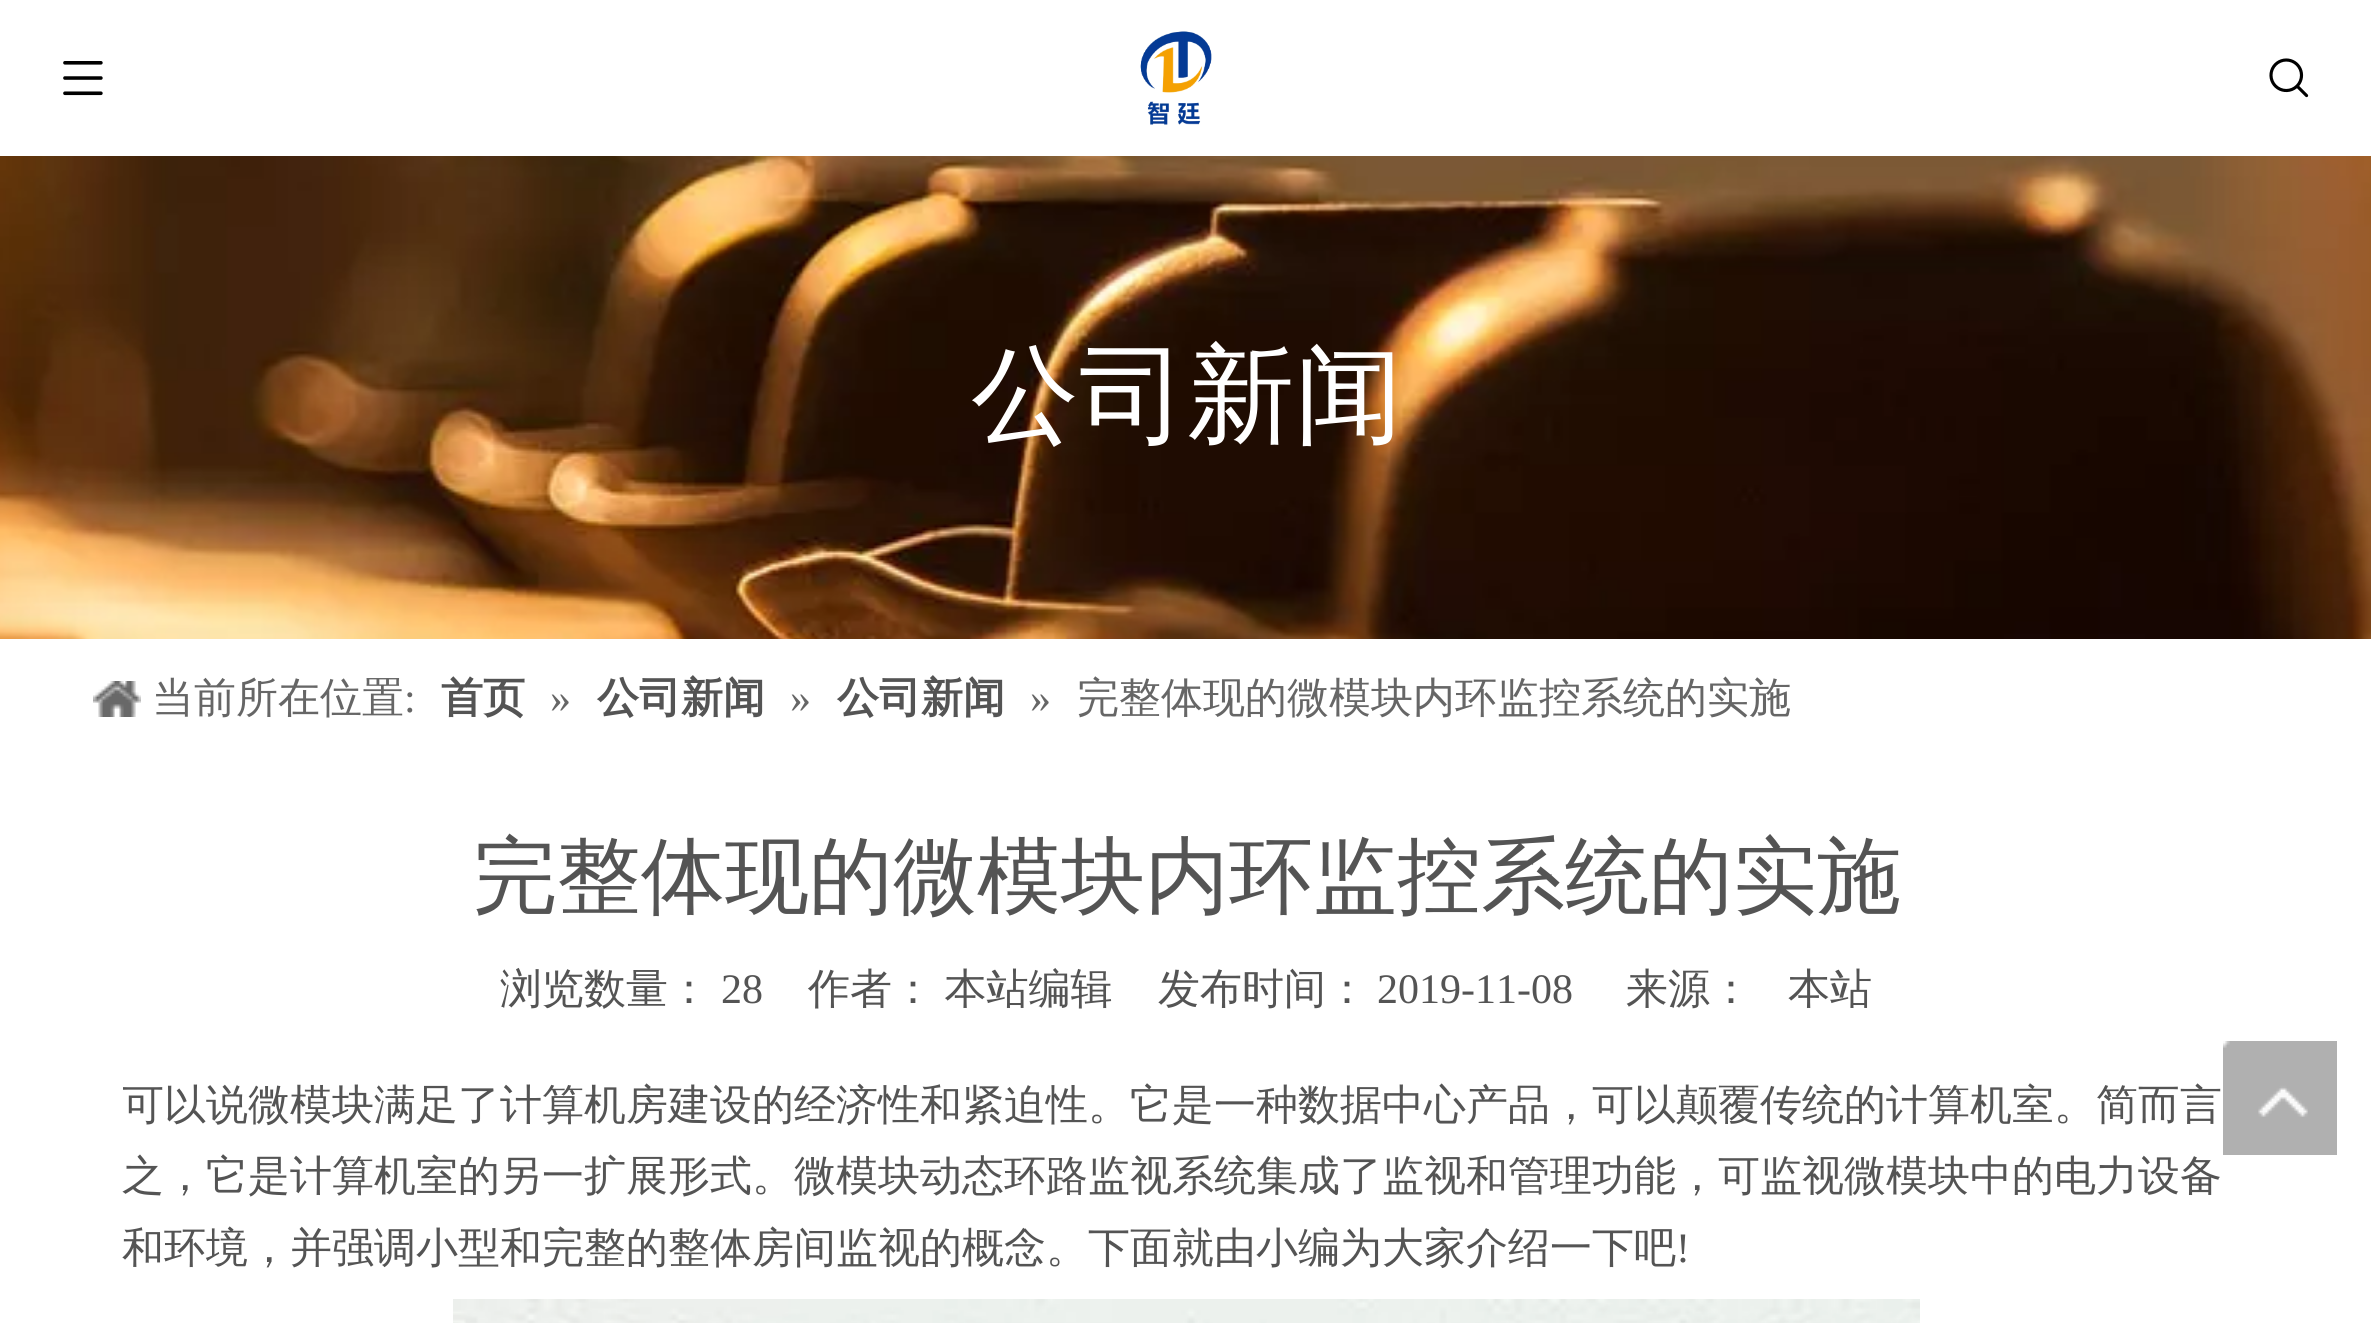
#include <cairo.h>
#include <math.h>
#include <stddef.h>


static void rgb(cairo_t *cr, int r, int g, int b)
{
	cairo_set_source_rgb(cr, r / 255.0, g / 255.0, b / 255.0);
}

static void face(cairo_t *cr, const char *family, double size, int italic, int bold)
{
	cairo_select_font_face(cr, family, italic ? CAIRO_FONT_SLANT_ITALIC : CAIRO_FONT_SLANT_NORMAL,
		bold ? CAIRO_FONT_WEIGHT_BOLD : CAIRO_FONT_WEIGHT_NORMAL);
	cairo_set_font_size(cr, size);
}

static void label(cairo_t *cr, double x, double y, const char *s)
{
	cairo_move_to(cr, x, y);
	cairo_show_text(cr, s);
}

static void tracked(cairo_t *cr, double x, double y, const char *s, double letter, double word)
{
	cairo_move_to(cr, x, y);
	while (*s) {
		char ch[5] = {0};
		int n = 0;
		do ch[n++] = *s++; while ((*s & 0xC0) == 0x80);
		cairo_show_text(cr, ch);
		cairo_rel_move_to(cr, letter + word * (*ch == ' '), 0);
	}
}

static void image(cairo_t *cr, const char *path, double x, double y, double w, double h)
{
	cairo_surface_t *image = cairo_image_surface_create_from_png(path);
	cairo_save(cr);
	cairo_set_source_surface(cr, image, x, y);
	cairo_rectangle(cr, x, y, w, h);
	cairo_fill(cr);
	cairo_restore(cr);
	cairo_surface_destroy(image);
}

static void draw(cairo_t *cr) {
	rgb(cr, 255, 255, 255);
	cairo_paint(cr);
	image(cr, "image0.png", 63, 61, 40, 35);
	image(cr, "image1.png", 1140, 31, 72, 94);
	image(cr, "image2.png", 2269, 58, 40, 40);
	image(cr, "image3.png", 0, 156, 2371, 483);
	face(cr, "WenQuanYi Zen Hei Medium", 108, 0, 0);
	rgb(cr, 255, 255, 255);
	label(cr, 971, 432, "公司新闻");
	image(cr, "image4.png", 93, 681, 48, 36);
	face(cr, "WenQuanYi Zen Hei Medium", 42, 0, 0);
	rgb(cr, 102, 102, 102);
	label(cr, 152, 712, "当前所在位置");
	face(cr, "Liberation Serif", 42, 0, 0);
	label(cr, 404, 712, ":");
	face(cr, "WenQuanYi Zen Hei", 42, 0, 1);
	rgb(cr, 84, 84, 84);
	label(cr, 441, 712, "首页");
	face(cr, "Liberation Serif", 42, 0, 0);
	rgb(cr, 102, 102, 102);
	label(cr, 550, 712, "»");
	face(cr, "WenQuanYi Zen Hei", 42, 0, 1);
	rgb(cr, 84, 84, 84);
	label(cr, 597, 712, "公司新闻");
	face(cr, "Liberation Serif", 42, 0, 0);
	rgb(cr, 102, 102, 102);
	label(cr, 790, 712, "»");
	face(cr, "WenQuanYi Zen Hei", 42, 0, 1);
	rgb(cr, 84, 84, 84);
	label(cr, 837, 712, "公司新闻");
	face(cr, "Liberation Serif", 42, 0, 0);
	rgb(cr, 102, 102, 102);
	label(cr, 1030, 712, "»");
	face(cr, "WenQuanYi Zen Hei Medium", 42, 0, 0);
	label(cr, 1077, 712, "完整体现的微模块内环监控系统的实施");
	face(cr, "WenQuanYi Zen Hei Medium", 84, 0, 0);
	rgb(cr, 84, 84, 84);
	label(cr, 473, 905, "完整体现的微模块内环监控系统的实施");
	face(cr, "WenQuanYi Zen Hei Medium", 42, 0, 0);
	label(cr, 500, 1003, "浏览数量：");
	face(cr, "Liberation Serif", 42, 0, 0);
	label(cr, 721, 1003, "28");
	face(cr, "WenQuanYi Zen Hei Medium", 42, 0, 0);
	tracked(cr, 808, 1003, "作者： 本站编辑", 0, -2);
	label(cr, 1158, 1003, "发布时间：");
	face(cr, "Liberation Serif", 42, 0, 0);
	label(cr, 1377, 1003, "2019-11-08");
	face(cr, "WenQuanYi Zen Hei Medium", 42, 0, 0);
	label(cr, 1626, 1003, "来源：");
	label(cr, 1788, 1003, "本站");
	cairo_save(cr);
	cairo_rectangle(cr, 123, 804, 2130, 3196);
	cairo_clip(cr);
	label(cr, 122, 1119, "可以说");
	cairo_restore(cr);
	label(cr, 248, 1119, "微模块满足了计算机房建设的经济性和紧迫性。它是一种数据中心产品，可以颠覆传统的计算机室。简而言");
	label(cr, 122, 1190, "之，它是计算机室的另一扩展形式。微模块动态环路监视系统集成了监视和管理功能，可监视微模块中的电力设备");
	label(cr, 122, 1262, "和环境，并强调小型和完整的整体房间监视的概念。下面就由小编为大家介绍一下吧");
	face(cr, "Liberation Serif", 42, 0, 0);
	label(cr, 1676, 1262, "!");
	image(cr, "image5.png", 453, 1299, 1467, 24);
	image(cr, "image6.png", 2223, 1041, 114, 114);
}

int main(void) {
	cairo_surface_t *surface = cairo_image_surface_create(CAIRO_FORMAT_RGB24, 2371, 1323);
	cairo_t *cr = cairo_create(surface);
	cairo_font_options_t *options = cairo_font_options_create();
	cairo_font_options_set_hint_metrics(options, CAIRO_HINT_METRICS_OFF);
	cairo_font_options_set_hint_style(options, CAIRO_HINT_STYLE_NONE);
	cairo_set_font_options(cr, options);
	cairo_set_miter_limit(cr, 4);
	draw(cr);
	cairo_surface_write_to_png(surface, "render.png");
	cairo_font_options_destroy(options);
	cairo_destroy(cr);
	cairo_surface_destroy(surface);
	return 0;
}
